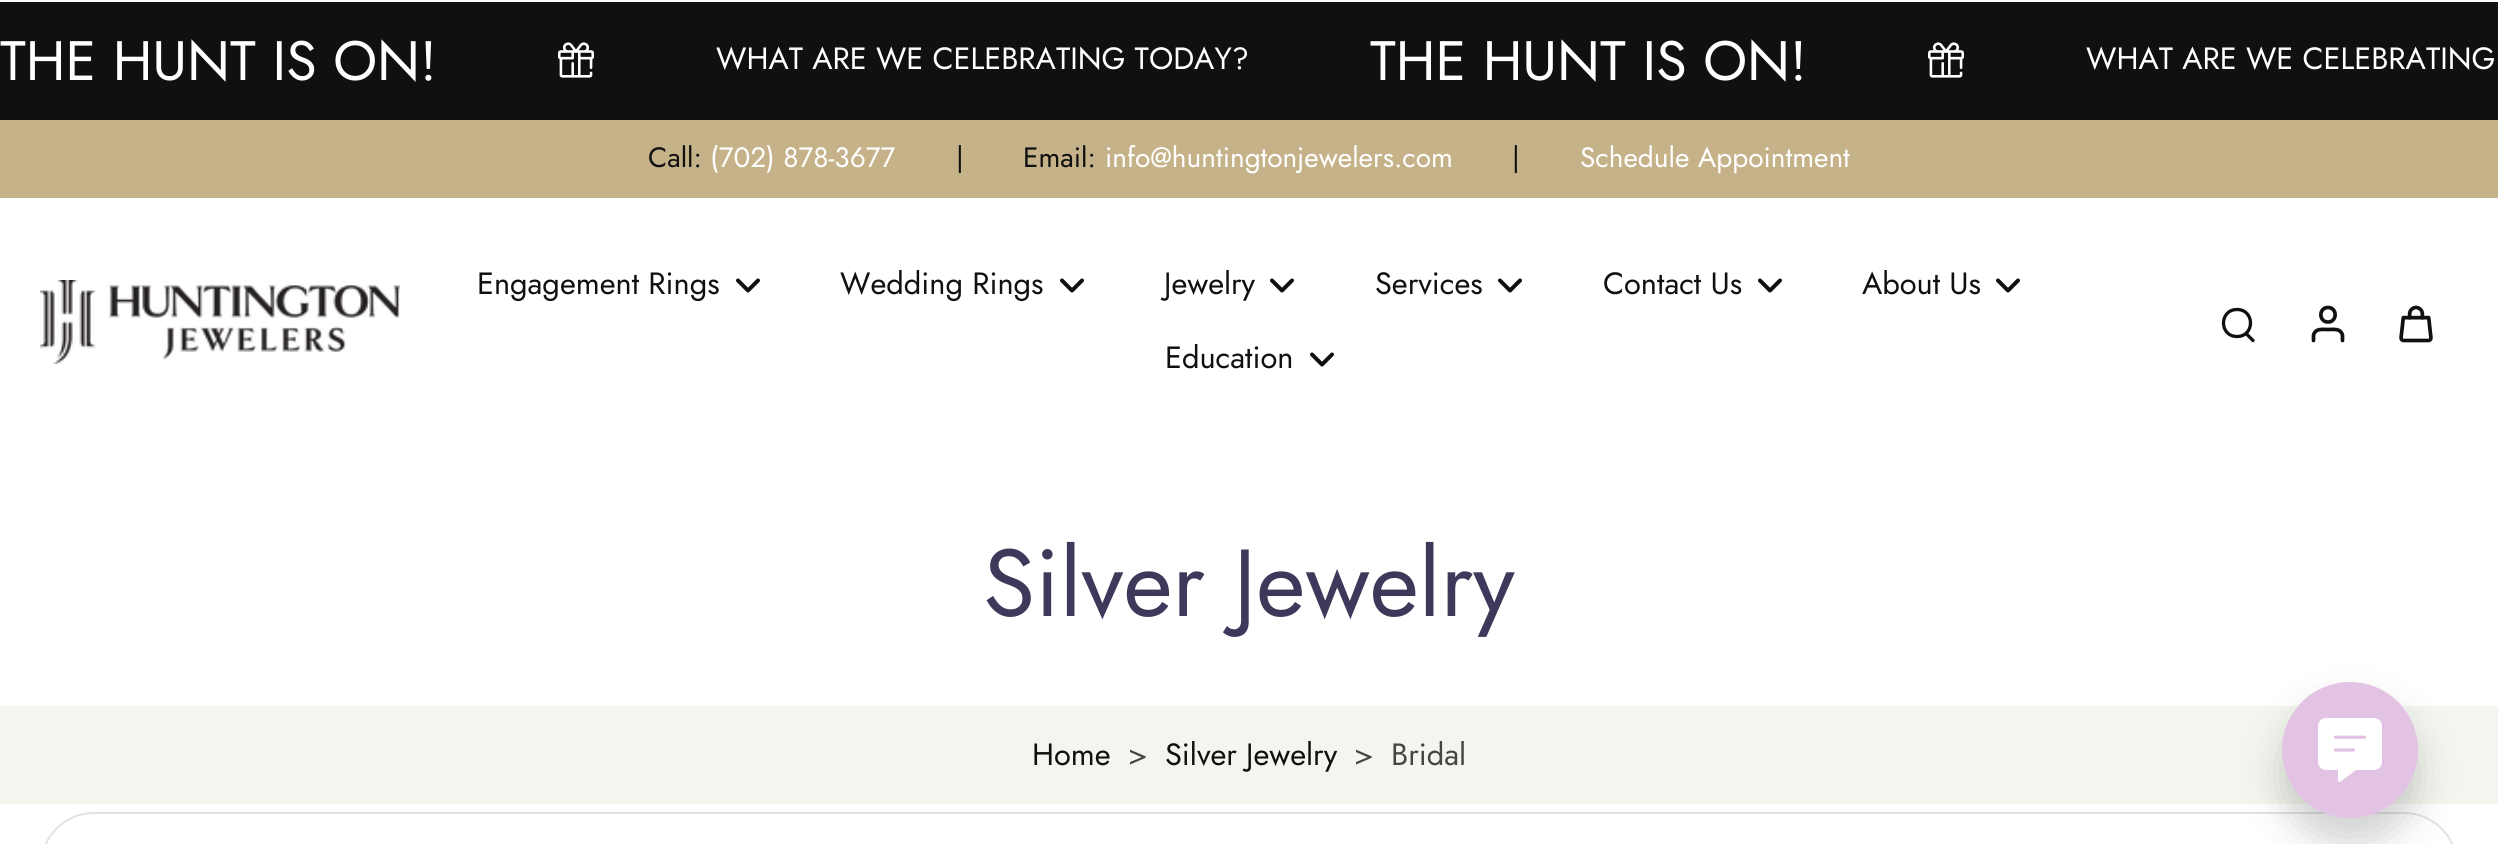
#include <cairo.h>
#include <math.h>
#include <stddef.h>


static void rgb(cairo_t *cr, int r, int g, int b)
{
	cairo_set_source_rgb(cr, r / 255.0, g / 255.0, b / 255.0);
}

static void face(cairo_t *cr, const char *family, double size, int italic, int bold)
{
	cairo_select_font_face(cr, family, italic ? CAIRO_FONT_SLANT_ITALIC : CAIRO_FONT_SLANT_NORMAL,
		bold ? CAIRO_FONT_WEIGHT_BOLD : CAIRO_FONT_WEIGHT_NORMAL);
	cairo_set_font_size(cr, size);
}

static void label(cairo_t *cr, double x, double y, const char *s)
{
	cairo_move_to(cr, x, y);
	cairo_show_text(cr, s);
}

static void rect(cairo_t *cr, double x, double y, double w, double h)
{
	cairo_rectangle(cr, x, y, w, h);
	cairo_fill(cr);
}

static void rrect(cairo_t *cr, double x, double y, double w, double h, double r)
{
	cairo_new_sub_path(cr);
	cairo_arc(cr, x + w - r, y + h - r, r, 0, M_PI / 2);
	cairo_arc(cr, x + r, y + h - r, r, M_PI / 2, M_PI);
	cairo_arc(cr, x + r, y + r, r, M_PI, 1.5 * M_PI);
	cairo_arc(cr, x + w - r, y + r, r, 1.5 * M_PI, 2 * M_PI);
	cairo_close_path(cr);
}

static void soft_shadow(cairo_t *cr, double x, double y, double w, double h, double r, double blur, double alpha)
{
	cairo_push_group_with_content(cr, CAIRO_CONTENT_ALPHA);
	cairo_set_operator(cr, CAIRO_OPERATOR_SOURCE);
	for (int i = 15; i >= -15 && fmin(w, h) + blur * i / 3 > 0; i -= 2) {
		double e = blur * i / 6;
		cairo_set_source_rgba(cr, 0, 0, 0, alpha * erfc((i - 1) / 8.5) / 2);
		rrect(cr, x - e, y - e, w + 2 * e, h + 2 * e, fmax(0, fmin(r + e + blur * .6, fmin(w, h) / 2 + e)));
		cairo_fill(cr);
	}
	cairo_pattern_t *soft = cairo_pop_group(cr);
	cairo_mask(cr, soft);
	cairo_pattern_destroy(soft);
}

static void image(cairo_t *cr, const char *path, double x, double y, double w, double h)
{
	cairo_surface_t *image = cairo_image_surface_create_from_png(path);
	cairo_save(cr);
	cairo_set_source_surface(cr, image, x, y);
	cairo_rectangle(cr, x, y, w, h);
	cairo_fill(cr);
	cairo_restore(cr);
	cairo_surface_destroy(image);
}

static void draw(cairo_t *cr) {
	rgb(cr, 255, 255, 255);
	cairo_paint(cr);
	rgb(cr, 16, 16, 16);
	rect(cr, 0, 2, 2498, 118);
	face(cr, "Jost", 55.5, 0, 0);
	rgb(cr, 255, 255, 255);
	label(cr, 0, 80, "THE HUNT IS ON!");
	image(cr, "image0.png", 558, 42, 36, 36);
	face(cr, "Jost", 30.75, 0, 0);
	label(cr, 716, 69, "WHAT ARE WE CELEBRATING TODAY?");
	face(cr, "Jost", 55.5, 0, 0);
	label(cr, 1370, 80, "THE HUNT IS ON!");
	image(cr, "image0.png", 1928, 42, 36, 36);
	face(cr, "Jost", 30.75, 0, 0);
	label(cr, 2086, 69, "WHAT ARE WE CELEBRATING");
	rgb(cr, 198, 178, 136);
	rect(cr, 0, 120, 2498, 78);
	face(cr, "Jost", 28, 0, 0);
	rgb(cr, 16, 16, 16);
	label(cr, 648, 167, "Call:");
	rgb(cr, 255, 255, 255);
	label(cr, 710, 167, "(702) 878-3677");
	rgb(cr, 16, 16, 16);
	label(cr, 956, 167, "|");
	label(cr, 1023, 167, "Email:");
	rgb(cr, 255, 255, 255);
	label(cr, 1105, 167, "info@huntingtonjewelers.com");
	rgb(cr, 16, 16, 16);
	label(cr, 1512, 167, "|");
	rgb(cr, 255, 255, 255);
	label(cr, 1580, 167, "Schedule Appointment");
	image(cr, "image1.png", 40, 280, 360, 84);
	face(cr, "Jost", 30.75, 0, 0);
	rgb(cr, 16, 16, 16);
	label(cr, 477, 294, "Engagement Rings");
	cairo_new_path(cr);
	cairo_move_to(cr, 738, 280.5);
	cairo_line_to(cr, 748, 290.5);
	cairo_line_to(cr, 758, 280.5);
	cairo_set_line_width(cr, 4);
	cairo_set_line_cap(cr, CAIRO_LINE_CAP_ROUND);
	cairo_set_line_join(cr, CAIRO_LINE_JOIN_ROUND);
	cairo_stroke(cr);
	label(cr, 840, 294, "Wedding Rings");
	cairo_new_path(cr);
	cairo_move_to(cr, 1062, 280.5);
	cairo_line_to(cr, 1072, 290.5);
	cairo_line_to(cr, 1082, 280.5);
	cairo_stroke(cr);
	label(cr, 1164, 294, "Jewelry");
	cairo_new_path(cr);
	cairo_move_to(cr, 1272, 280.5);
	cairo_line_to(cr, 1282, 290.5);
	cairo_line_to(cr, 1292, 280.5);
	cairo_stroke(cr);
	label(cr, 1375, 294, "Services");
	cairo_new_path(cr);
	cairo_move_to(cr, 1500, 280.5);
	cairo_line_to(cr, 1510, 290.5);
	cairo_line_to(cr, 1520, 280.5);
	cairo_stroke(cr);
	label(cr, 1603, 294, "Contact Us");
	cairo_new_path(cr);
	cairo_move_to(cr, 1760, 280.5);
	cairo_line_to(cr, 1770, 290.5);
	cairo_line_to(cr, 1780, 280.5);
	cairo_stroke(cr);
	label(cr, 1862, 294, "About Us");
	cairo_new_path(cr);
	cairo_move_to(cr, 1998, 280.5);
	cairo_line_to(cr, 2008, 290.5);
	cairo_line_to(cr, 2018, 280.5);
	cairo_stroke(cr);
	label(cr, 1165, 368, "Education");
	cairo_new_path(cr);
	cairo_move_to(cr, 1312, 354.5);
	cairo_line_to(cr, 1322, 364.5);
	cairo_line_to(cr, 1332, 354.5);
	cairo_stroke(cr);
	cairo_new_path(cr);
	cairo_move_to(cr, 2237, 336.5);
	cairo_curve_to(cr, 2255, 336.5, 2255, 309.5, 2237, 309.5);
	cairo_curve_to(cr, 2219, 309.5, 2219, 336.5, 2237, 336.5);
	cairo_close_path(cr);
	cairo_set_line_width(cr, 3.3);
	cairo_set_line_cap(cr, CAIRO_LINE_CAP_BUTT);
	cairo_set_line_join(cr, CAIRO_LINE_JOIN_MITER);
	cairo_stroke(cr);
	cairo_new_path(cr);
	cairo_move_to(cr, 2246.5, 334);
	cairo_line_to(cr, 2253, 340.5);
	cairo_set_line_cap(cr, CAIRO_LINE_CAP_ROUND);
	cairo_stroke(cr);
	cairo_new_path(cr);
	cairo_move_to(cr, 2342.5, 340.5);
	cairo_line_to(cr, 2342.5, 335.5);
	cairo_curve_to(cr, 2341, 328, 2333.5, 329.5, 2328, 329.5);
	cairo_curve_to(cr, 2322.5, 329.5, 2315, 328, 2313.5, 335.5);
	cairo_line_to(cr, 2313.5, 340.5);
	cairo_move_to(cr, 2328, 322);
	cairo_curve_to(cr, 2337.5, 322, 2337.5, 307.5, 2328, 307.5);
	cairo_curve_to(cr, 2318.5, 307.5, 2318.5, 322, 2328, 322);
	cairo_close_path(cr);
	cairo_set_line_width(cr, 3.7);
	cairo_set_line_join(cr, CAIRO_LINE_JOIN_ROUND);
	cairo_stroke(cr);
	image(cr, "image2.png", 2399, 305, 34, 38);
	face(cr, "Jost", 95, 0, 0);
	rgb(cr, 62, 56, 90);
	label(cr, 983, 616, "Silver Jewelry");
	rgb(cr, 243, 246, 239);
	rect(cr, 0, 706, 2498, 98);
	face(cr, "Jost", 30.75, 0, 0);
	rgb(cr, 16, 16, 16);
	label(cr, 1032, 765, "Home");
	rgb(cr, 69, 70, 69);
	label(cr, 1128, 765, ">");
	rgb(cr, 16, 16, 16);
	label(cr, 1165, 765, "Silver Jewelry");
	rgb(cr, 69, 70, 69);
	label(cr, 1354, 765, ">");
	label(cr, 1391, 765, "Bridal");
	rrect(cr, 41, 813, 2416, 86, 53);
	rgb(cr, 225, 227, 225);
	cairo_set_line_width(cr, 2);
	cairo_set_line_cap(cr, CAIRO_LINE_CAP_BUTT);
	cairo_set_line_join(cr, CAIRO_LINE_JOIN_MITER);
	cairo_stroke(cr);
	rgb(cr, 0, 0, 0);
	soft_shadow(cr, 2282, 706, 136, 136, 68, 19, 0.18);
	rgb(cr, 227, 195, 228);
	cairo_arc(cr, 2350, 750, 68, 0, 2 * M_PI);
	cairo_fill(cr);
	image(cr, "image3.png", 2318, 718, 64, 64);
}

int main(void) {
	cairo_surface_t *surface = cairo_image_surface_create(CAIRO_FORMAT_RGB24, 2498, 844);
	cairo_t *cr = cairo_create(surface);
	cairo_font_options_t *options = cairo_font_options_create();
	cairo_font_options_set_hint_metrics(options, CAIRO_HINT_METRICS_OFF);
	cairo_font_options_set_hint_style(options, CAIRO_HINT_STYLE_NONE);
	cairo_set_font_options(cr, options);
	cairo_set_miter_limit(cr, 4);
	draw(cr);
	cairo_surface_write_to_png(surface, "render.png");
	cairo_font_options_destroy(options);
	cairo_destroy(cr);
	cairo_surface_destroy(surface);
	return 0;
}
